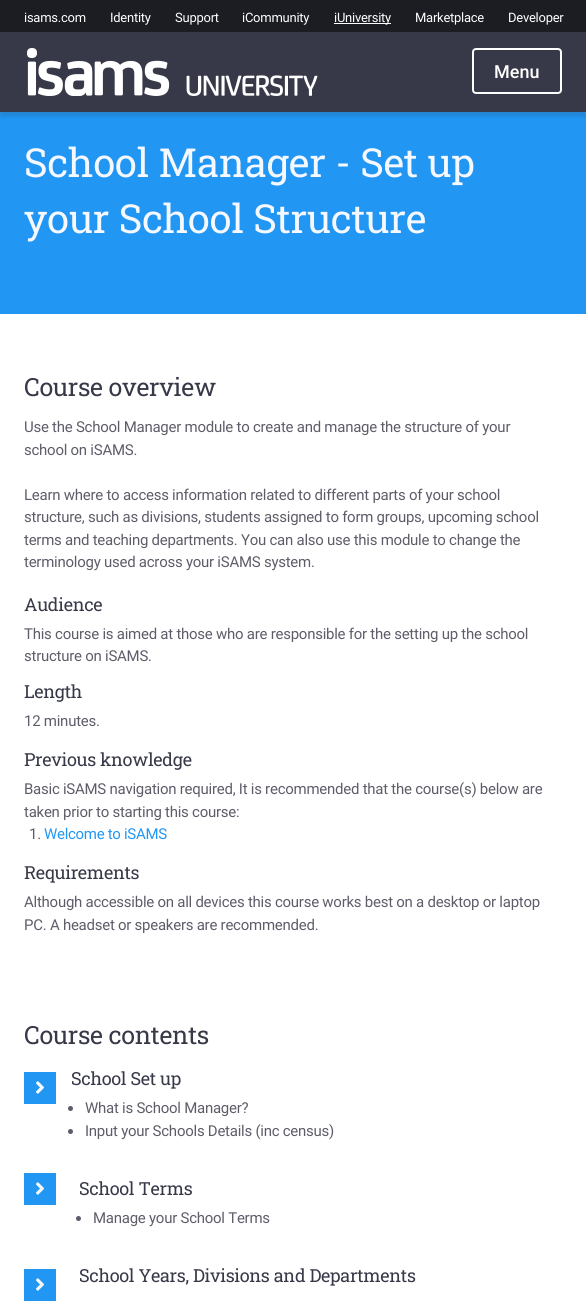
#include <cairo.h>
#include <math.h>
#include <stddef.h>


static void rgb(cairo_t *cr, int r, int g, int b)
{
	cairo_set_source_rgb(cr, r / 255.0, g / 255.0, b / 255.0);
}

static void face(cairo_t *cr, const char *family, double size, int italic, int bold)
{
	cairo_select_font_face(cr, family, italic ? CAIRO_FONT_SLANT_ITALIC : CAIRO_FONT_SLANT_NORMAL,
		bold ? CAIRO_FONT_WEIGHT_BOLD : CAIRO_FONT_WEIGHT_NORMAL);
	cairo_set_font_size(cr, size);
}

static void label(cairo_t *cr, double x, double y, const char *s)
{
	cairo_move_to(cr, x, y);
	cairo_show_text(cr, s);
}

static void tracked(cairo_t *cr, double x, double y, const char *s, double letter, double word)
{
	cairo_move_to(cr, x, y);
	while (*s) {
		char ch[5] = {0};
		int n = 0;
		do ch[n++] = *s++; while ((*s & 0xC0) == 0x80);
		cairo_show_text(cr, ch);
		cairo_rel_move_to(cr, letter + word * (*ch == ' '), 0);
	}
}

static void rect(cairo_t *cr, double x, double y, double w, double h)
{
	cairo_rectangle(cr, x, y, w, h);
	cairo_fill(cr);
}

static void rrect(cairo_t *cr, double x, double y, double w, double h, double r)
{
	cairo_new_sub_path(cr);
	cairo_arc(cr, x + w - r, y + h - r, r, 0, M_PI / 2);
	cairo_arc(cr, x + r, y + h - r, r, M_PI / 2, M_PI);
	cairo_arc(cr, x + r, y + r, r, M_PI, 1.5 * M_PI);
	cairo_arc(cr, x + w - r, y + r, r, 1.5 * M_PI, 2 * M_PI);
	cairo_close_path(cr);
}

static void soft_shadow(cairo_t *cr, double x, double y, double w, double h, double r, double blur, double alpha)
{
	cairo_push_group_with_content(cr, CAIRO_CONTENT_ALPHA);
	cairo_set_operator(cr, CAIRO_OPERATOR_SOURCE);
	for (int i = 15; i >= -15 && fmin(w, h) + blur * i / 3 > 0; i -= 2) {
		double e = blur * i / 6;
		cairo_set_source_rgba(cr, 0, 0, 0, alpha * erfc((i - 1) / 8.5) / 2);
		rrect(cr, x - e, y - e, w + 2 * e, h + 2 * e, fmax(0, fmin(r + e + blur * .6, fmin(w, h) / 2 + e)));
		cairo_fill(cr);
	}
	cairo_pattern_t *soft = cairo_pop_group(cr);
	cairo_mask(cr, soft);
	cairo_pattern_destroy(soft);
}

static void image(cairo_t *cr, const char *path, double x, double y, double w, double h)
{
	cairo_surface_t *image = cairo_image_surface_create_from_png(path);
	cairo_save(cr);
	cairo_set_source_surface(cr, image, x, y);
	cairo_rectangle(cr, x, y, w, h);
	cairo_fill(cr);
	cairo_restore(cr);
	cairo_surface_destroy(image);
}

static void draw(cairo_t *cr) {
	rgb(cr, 33, 150, 243);
	cairo_paint(cr);
	rgb(cr, 0, 0, 0);
	soft_shadow(cr, 0, 36, 586, 80, 0, 2, 0.14);
	rgb(cr, 196, 196, 196);
	soft_shadow(cr, 0, 32, 586, 80, 0, 2, 0.14);
	rgb(cr, 28, 29, 35);
	rect(cr, 0, 0, 586, 32);
	face(cr, "Roboto", 13, 0, 0);
	rgb(cr, 255, 255, 255);
	tracked(cr, 24, 22, "isams.com", -0.25, 0);
	tracked(cr, 110, 22, "Identity", -0.25, 0);
	tracked(cr, 175, 22, "Support", -0.25, 0);
	tracked(cr, 242, 22, "iCommunity", -0.25, 0);
	rect(cr, 334, 23, 57, 1);
	tracked(cr, 334, 22, "iUniversity", -0.25, 0);
	tracked(cr, 415, 22, "Marketplace", -0.25, 0);
	tracked(cr, 508, 22, "Developer", -0.25, 0);
	rgb(cr, 55, 57, 72);
	rect(cr, 0, 32, 586, 80);
	image(cr, "image0.png", 27, 48, 291, 48);
	rrect(cr, 473, 49, 88, 44, 3);
	rgb(cr, 255, 255, 255);
	cairo_stroke(cr);
	face(cr, "Roboto Medium", 18, 0, 0);
	label(cr, 494, 78, "Menu");
	face(cr, "Roboto Slab", 40, 0, 0);
	rgb(cr, 246, 248, 255);
	tracked(cr, 24, 177, "School Manager - Set up", -0.3, 0);
	tracked(cr, 24, 233, "your School Structure", -0.3, 0);
	rgb(cr, 255, 255, 255);
	rect(cr, 0, 314, 586, 990);
	face(cr, "Roboto Slab", 25, 0, 0);
	rgb(cr, 55, 57, 72);
	tracked(cr, 24, 396, "Course overview", -0.3, 0);
	face(cr, "Roboto", 15, 0, 0);
	rgb(cr, 94, 92, 105);
	tracked(cr, 24, 432, "Use the School Manager module to create and manage the structure of your", -0.25, 0);
	tracked(cr, 24, 455, "school on iSAMS.", -0.25, 0);
	tracked(cr, 24, 500, "Learn where to access information related to different parts of your school", -0.25, 0);
	tracked(cr, 24, 522, "structure, such as divisions, students assigned to form groups, upcoming school", -0.25, 0);
	tracked(cr, 24, 545, "terms and teaching departments. You can also use this module to change the", -0.25, 0);
	tracked(cr, 24, 567, "terminology used across your iSAMS system.", -0.25, 0);
	face(cr, "Roboto Slab", 18, 0, 0);
	rgb(cr, 55, 57, 72);
	tracked(cr, 24, 611, "Audience", -0.3, 0);
	face(cr, "Roboto", 15, 0, 0);
	rgb(cr, 94, 92, 105);
	tracked(cr, 24, 639, "This course is aimed at those who are responsible for the setting up the school", -0.25, 0);
	tracked(cr, 24, 661, "structure on iSAMS.", -0.25, 0);
	face(cr, "Roboto Slab", 18, 0, 0);
	rgb(cr, 55, 57, 72);
	tracked(cr, 24, 698, "Length", -0.3, 0);
	face(cr, "Roboto", 15, 0, 0);
	rgb(cr, 94, 92, 105);
	tracked(cr, 24, 726, "12 minutes.", -0.25, 0);
	face(cr, "Roboto Slab", 18, 0, 0);
	rgb(cr, 55, 57, 72);
	tracked(cr, 24, 766, "Previous knowledge", -0.3, 0);
	face(cr, "Roboto", 15, 0, 0);
	rgb(cr, 94, 92, 105);
	tracked(cr, 24, 794, "Basic iSAMS navigation required, It is recommended that the course(s) below are", -0.25, 0);
	tracked(cr, 24, 817, "taken prior to starting this course:", -0.25, 0);
	tracked(cr, 29, 839, "1.", -0.25, 0);
	rgb(cr, 33, 150, 243);
	tracked(cr, 44, 839, "Welcome to iSAMS", -0.3, 0);
	face(cr, "Roboto Slab", 18, 0, 0);
	rgb(cr, 55, 57, 72);
	tracked(cr, 24, 879, "Requirements", -0.3, 0);
	face(cr, "Roboto", 15, 0, 0);
	rgb(cr, 94, 92, 105);
	tracked(cr, 24, 907, "Although accessible on all devices this course works best on a desktop or laptop", -0.25, 0);
	tracked(cr, 24, 930, "PC. A headset or speakers are recommended.", -0.25, 0);
	face(cr, "Roboto Slab", 25, 0, 0);
	rgb(cr, 55, 57, 72);
	tracked(cr, 24, 1044, "Course contents", -0.3, 0);
	rgb(cr, 33, 150, 243);
	rect(cr, 24, 1072, 32, 32);
	image(cr, "image1.png", 36, 1081, 8, 13);
	face(cr, "Roboto Slab", 18, 0, 0);
	rgb(cr, 55, 57, 72);
	tracked(cr, 71, 1085, "School Set up", -0.3, 0);
	rgb(cr, 94, 92, 105);
	cairo_new_path(cr);
	cairo_arc(cr, 70.5, 1108.5, 2.5, 0, 2 * M_PI);
	cairo_fill(cr);
	face(cr, "Roboto", 15, 0, 0);
	tracked(cr, 85, 1113, "What is School Manager?", -0.25, 0);
	cairo_new_path(cr);
	cairo_arc(cr, 70.5, 1131.5, 2.5, 0, 2 * M_PI);
	cairo_fill(cr);
	tracked(cr, 85, 1136, "Input your Schools Details (inc census)", -0.25, 0);
	rgb(cr, 33, 150, 243);
	rect(cr, 24, 1173, 32, 32);
	image(cr, "image1.png", 36, 1182, 8, 13);
	face(cr, "Roboto Slab", 18, 0, 0);
	rgb(cr, 55, 57, 72);
	tracked(cr, 79, 1195, "School Terms", -0.3, 0);
	rgb(cr, 94, 92, 105);
	cairo_new_path(cr);
	cairo_arc(cr, 78.5, 1218.5, 2.5, 0, 2 * M_PI);
	cairo_fill(cr);
	face(cr, "Roboto", 15, 0, 0);
	tracked(cr, 93, 1223, "Manage your School Terms", -0.25, 0);
	rgb(cr, 33, 150, 243);
	rect(cr, 24, 1269, 32, 32);
	image(cr, "image1.png", 36, 1278, 8, 13);
	face(cr, "Roboto Slab", 18, 0, 0);
	rgb(cr, 55, 57, 72);
	tracked(cr, 79, 1282, "School Years, Divisions and Departments", -0.3, 0);
}

int main(void) {
	cairo_surface_t *surface = cairo_image_surface_create(CAIRO_FORMAT_RGB24, 586, 1304);
	cairo_t *cr = cairo_create(surface);
	cairo_font_options_t *options = cairo_font_options_create();
	cairo_font_options_set_hint_metrics(options, CAIRO_HINT_METRICS_OFF);
	cairo_font_options_set_hint_style(options, CAIRO_HINT_STYLE_NONE);
	cairo_set_font_options(cr, options);
	cairo_set_miter_limit(cr, 4);
	draw(cr);
	cairo_surface_write_to_png(surface, "render.png");
	cairo_font_options_destroy(options);
	cairo_destroy(cr);
	cairo_surface_destroy(surface);
	return 0;
}
